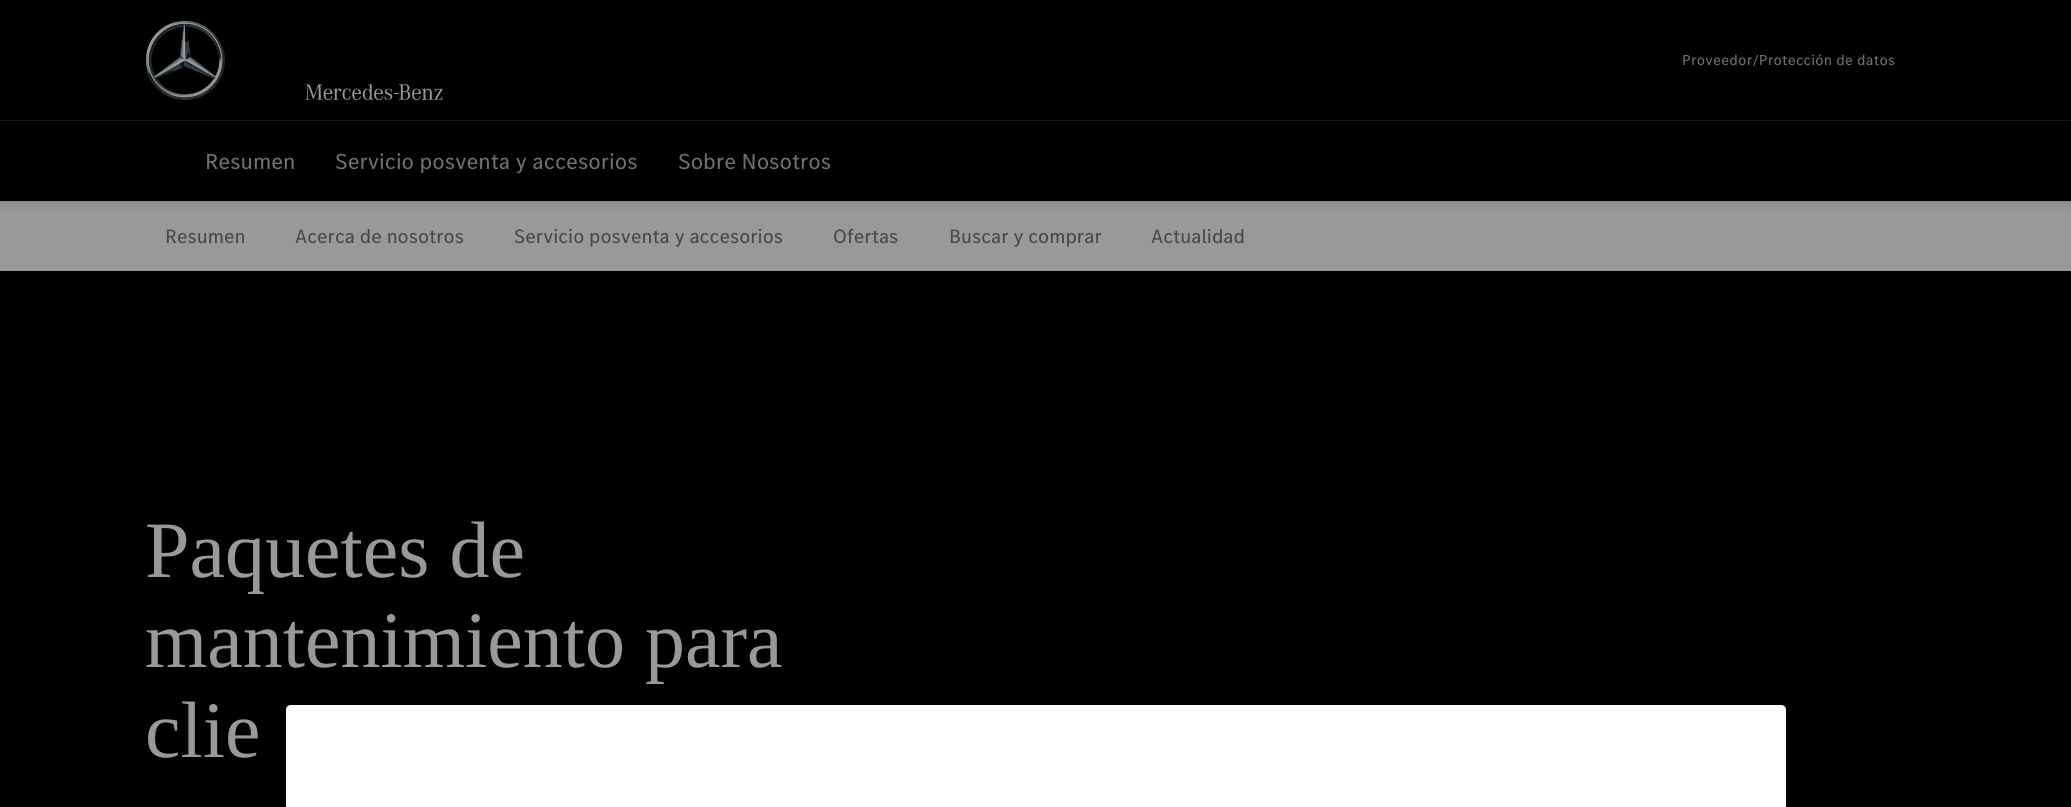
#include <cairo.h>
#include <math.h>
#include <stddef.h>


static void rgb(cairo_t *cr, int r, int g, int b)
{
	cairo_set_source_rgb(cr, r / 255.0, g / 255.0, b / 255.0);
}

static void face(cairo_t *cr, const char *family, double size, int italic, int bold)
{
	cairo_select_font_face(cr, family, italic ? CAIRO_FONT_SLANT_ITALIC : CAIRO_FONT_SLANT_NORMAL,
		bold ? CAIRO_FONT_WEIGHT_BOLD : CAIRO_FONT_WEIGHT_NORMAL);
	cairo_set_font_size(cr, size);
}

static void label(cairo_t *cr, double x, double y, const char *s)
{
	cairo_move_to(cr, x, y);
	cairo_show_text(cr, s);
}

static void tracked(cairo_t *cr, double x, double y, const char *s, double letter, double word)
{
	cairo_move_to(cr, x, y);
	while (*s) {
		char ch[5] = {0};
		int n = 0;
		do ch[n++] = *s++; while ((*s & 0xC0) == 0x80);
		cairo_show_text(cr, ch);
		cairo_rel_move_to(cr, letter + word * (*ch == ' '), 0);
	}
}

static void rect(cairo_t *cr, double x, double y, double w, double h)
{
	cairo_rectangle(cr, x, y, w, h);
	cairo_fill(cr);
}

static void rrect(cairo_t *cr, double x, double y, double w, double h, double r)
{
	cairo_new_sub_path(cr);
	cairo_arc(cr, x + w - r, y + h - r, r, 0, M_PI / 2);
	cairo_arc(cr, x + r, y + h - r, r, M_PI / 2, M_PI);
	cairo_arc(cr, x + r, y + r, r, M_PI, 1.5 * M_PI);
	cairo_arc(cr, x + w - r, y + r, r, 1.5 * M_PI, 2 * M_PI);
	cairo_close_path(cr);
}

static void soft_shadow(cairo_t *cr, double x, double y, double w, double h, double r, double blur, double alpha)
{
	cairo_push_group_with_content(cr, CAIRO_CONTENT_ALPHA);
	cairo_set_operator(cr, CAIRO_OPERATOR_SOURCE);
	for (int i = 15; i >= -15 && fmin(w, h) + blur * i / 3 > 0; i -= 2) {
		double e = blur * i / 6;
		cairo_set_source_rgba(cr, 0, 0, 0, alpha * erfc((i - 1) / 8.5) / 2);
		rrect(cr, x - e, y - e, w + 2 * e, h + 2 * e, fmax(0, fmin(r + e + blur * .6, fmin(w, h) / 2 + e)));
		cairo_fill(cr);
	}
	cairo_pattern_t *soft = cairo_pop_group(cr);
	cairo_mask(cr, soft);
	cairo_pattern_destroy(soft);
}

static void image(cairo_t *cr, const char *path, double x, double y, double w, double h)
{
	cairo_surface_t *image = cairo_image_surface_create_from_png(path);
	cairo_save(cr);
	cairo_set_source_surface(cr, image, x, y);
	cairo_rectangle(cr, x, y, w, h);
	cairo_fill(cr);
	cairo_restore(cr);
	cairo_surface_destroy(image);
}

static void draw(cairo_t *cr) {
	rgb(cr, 153, 153, 153);
	cairo_paint(cr);
	rgb(cr, 0, 0, 0);
	soft_shadow(cr, 0, 136, 2071, 70, 0, 5, 0.1);
	soft_shadow(cr, 0, 131, 2071, 70, 0, 1, 0.1);
	rgb(cr, 0, 0, 0);
	rect(cr, 0, 0, 2071, 201);
	image(cr, "image0.png", 145, 20, 80, 80);
	image(cr, "image1.png", 305, 84, 138, 16);
	face(cr, "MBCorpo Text", 15, 0, 0);
	rgb(cr, 112, 112, 112);
	tracked(cr, 1682, 65, "Proveedor/Protección de datos", 0.25, 0);
	rgb(cr, 23, 23, 23);
	rect(cr, 0, 120, 2071, 1);
	face(cr, "MBCorpo Text", 22.5, 0, 0);
	rgb(cr, 112, 112, 112);
	label(cr, 205, 169, "Resumen");
	label(cr, 335, 169, "Servicio posventa y accesorios");
	label(cr, 678, 169, "Sobre Nosotros");
	face(cr, "MBCorpo Text", 20, 0, 0);
	rgb(cr, 71, 71, 71);
	label(cr, 165, 243, "Resumen");
	label(cr, 295, 243, "Acerca de nosotros");
	label(cr, 514, 243, "Servicio posventa y accesorios");
	label(cr, 833, 243, "Ofertas");
	label(cr, 949, 243, "Buscar y comprar");
	label(cr, 1151, 243, "Actualidad");
	rgb(cr, 0, 0, 0);
	rect(cr, 0, 271, 2071, 536);
	face(cr, "Liberation Serif", 80, 0, 0);
	rgb(cr, 153, 153, 153);
	label(cr, 145, 577, "Paquetes de");
	label(cr, 145, 667, "mantenimiento para");
	label(cr, 145, 757, "clie");
	rgb(cr, 255, 255, 255);
	cairo_new_path(cr);
	cairo_move_to(cr, 291, 705);
	cairo_line_to(cr, 1781, 705);
	cairo_curve_to(cr, 1784, 705, 1786, 707, 1786, 710);
	cairo_line_to(cr, 1786, 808);
	cairo_line_to(cr, 286, 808);
	cairo_line_to(cr, 286, 710);
	cairo_curve_to(cr, 286, 707, 288, 705, 291, 705);
	cairo_close_path(cr);
	cairo_fill(cr);
}

int main(void) {
	cairo_surface_t *surface = cairo_image_surface_create(CAIRO_FORMAT_RGB24, 2071, 807);
	cairo_t *cr = cairo_create(surface);
	cairo_font_options_t *options = cairo_font_options_create();
	cairo_font_options_set_hint_metrics(options, CAIRO_HINT_METRICS_OFF);
	cairo_font_options_set_hint_style(options, CAIRO_HINT_STYLE_NONE);
	cairo_set_font_options(cr, options);
	cairo_set_miter_limit(cr, 4);
	draw(cr);
	cairo_surface_write_to_png(surface, "render.png");
	cairo_font_options_destroy(options);
	cairo_destroy(cr);
	cairo_surface_destroy(surface);
	return 0;
}
